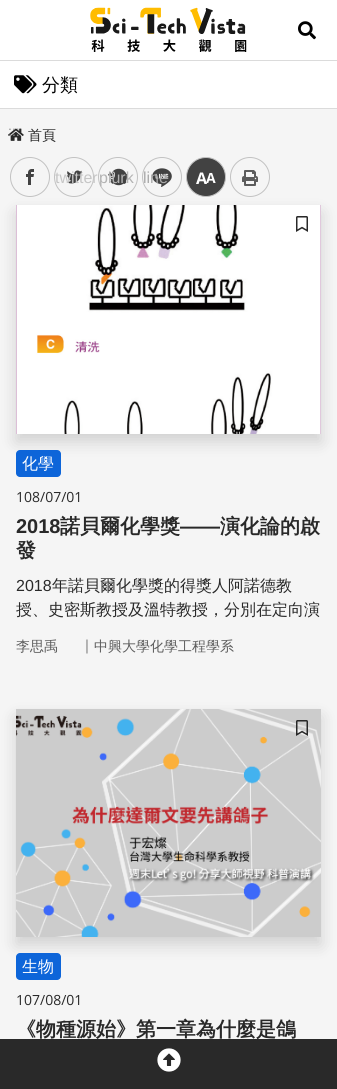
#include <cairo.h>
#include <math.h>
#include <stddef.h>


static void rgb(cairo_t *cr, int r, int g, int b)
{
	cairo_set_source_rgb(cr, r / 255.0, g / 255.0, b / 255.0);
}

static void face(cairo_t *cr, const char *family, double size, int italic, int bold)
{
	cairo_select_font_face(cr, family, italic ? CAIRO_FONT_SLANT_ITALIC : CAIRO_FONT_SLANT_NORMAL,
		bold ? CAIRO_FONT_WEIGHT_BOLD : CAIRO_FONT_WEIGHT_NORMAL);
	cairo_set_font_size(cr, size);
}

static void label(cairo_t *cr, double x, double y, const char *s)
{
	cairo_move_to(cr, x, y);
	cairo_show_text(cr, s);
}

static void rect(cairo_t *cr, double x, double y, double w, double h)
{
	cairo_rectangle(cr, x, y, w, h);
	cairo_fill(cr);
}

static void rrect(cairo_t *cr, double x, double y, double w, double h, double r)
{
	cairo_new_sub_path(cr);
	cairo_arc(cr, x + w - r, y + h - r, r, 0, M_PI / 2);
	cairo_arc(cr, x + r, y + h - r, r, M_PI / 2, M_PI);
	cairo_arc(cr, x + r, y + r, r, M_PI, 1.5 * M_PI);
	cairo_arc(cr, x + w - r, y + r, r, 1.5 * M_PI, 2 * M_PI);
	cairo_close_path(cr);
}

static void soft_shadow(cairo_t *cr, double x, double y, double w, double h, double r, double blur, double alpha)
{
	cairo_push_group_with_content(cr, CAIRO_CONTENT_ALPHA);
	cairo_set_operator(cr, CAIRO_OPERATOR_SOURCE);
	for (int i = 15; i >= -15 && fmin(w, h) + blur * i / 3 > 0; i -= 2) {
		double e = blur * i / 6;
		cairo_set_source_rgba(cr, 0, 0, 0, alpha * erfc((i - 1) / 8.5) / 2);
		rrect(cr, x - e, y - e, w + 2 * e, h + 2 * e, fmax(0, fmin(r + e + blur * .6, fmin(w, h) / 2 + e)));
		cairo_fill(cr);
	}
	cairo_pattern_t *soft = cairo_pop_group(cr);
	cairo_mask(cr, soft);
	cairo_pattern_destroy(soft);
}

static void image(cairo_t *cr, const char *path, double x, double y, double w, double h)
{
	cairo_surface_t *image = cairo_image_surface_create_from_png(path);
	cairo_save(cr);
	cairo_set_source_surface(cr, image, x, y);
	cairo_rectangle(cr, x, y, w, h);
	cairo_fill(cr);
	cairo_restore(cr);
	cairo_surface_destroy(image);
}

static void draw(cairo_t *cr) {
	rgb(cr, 245, 245, 245);
	cairo_paint(cr);
	rgb(cr, 255, 255, 255);
	rect(cr, 0, 0, 337, 60);
	rgb(cr, 219, 219, 219);
	rect(cr, 0, 60, 337, 1);
	image(cr, "image0.png", 90, 7, 157, 45);
	image(cr, "image1.png", 298, 21, 18, 19);
	rgb(cr, 255, 255, 255);
	rect(cr, 0, 61, 337, 47);
	rgb(cr, 219, 219, 219);
	rect(cr, 0, 108, 337, 1);
	image(cr, "image2.png", 14, 75, 23, 19);
	face(cr, "WenQuanYi Zen Hei Medium", 18, 0, 0);
	rgb(cr, 0, 0, 0);
	label(cr, 42, 91, "分類");
	image(cr, "image3.png", 8, 128, 16, 13);
	face(cr, "Liberation Sans", 14, 0, 0);
	rgb(cr, 144, 144, 144);
	label(cr, 8, 136, ":::");
	face(cr, "WenQuanYi Zen Hei Medium", 14, 0, 0);
	rgb(cr, 41, 41, 41);
	label(cr, 28, 140, "首頁");
	image(cr, "image4.png", 26, 169, 8, 16);
	cairo_arc(cr, 30, 177, 19.5, 0, 2 * M_PI);
	rgb(cr, 194, 194, 194);
	cairo_set_line_width(cr, 1);
	cairo_stroke(cr);
	image(cr, "image5.png", 66, 170, 17, 14);
	cairo_arc(cr, 74, 177, 19.5, 0, 2 * M_PI);
	cairo_stroke(cr);
	face(cr, "Liberation Sans", 16, 0, 0);
	rgb(cr, 198, 198, 198);
	label(cr, 55, 183, "twitter");
	image(cr, "image6.png", 108, 168, 20, 18);
	cairo_arc(cr, 118, 177, 19.5, 0, 2 * M_PI);
	rgb(cr, 194, 194, 194);
	cairo_stroke(cr);
	rgb(cr, 179, 179, 179);
	label(cr, 99, 183, "plurk");
	image(cr, "image7.png", 152, 168, 20, 19);
	cairo_arc(cr, 162, 177, 19.5, 0, 2 * M_PI);
	rgb(cr, 194, 194, 194);
	cairo_stroke(cr);
	rgb(cr, 170, 170, 170);
	label(cr, 143, 183, "line");
	rgb(cr, 66, 66, 66);
	cairo_new_path(cr);
	cairo_arc(cr, 206, 177, 19.5, 0, 2 * M_PI);
	cairo_fill_preserve(cr);
	rgb(cr, 194, 194, 194);
	cairo_stroke(cr);
	face(cr, "Open Sans", 16, 0, 1);
	rgb(cr, 255, 255, 255);
	label(cr, 196, 184, "A");
	face(cr, "Open Sans", 14, 0, 1);
	label(cr, 206, 183, "A");
	cairo_new_path(cr);
	cairo_arc(cr, 250, 177, 19.5, 0, 2 * M_PI);
	rgb(cr, 194, 194, 194);
	cairo_stroke(cr);
	image(cr, "image8.png", 242, 170, 16, 16);
	rgb(cr, 0, 0, 0);
	soft_shadow(cr, 16, 213, 305, 229, 0, 8, 0.15);
	image(cr, "image10.png", 16, 205, 305, 229);
	image(cr, "image9.png", 296, 216, 12, 16);
	rgb(cr, 13, 101, 217);
	rrect(cr, 16, 450, 45, 27, 4);
	cairo_fill(cr);
	face(cr, "WenQuanYi Zen Hei Medium", 16, 0, 0);
	rgb(cr, 255, 255, 255);
	label(cr, 22, 469, "化學");
	face(cr, "Open Sans", 14, 0, 0);
	rgb(cr, 41, 41, 41);
	label(cr, 16, 502, "108/07/01");
	face(cr, "Liberation Sans", 20, 0, 1);
	label(cr, 16, 533, "2018");
	face(cr, "WenQuanYi Zen Hei", 20, 0, 1);
	label(cr, 60, 533, "諾貝爾化學獎");
	face(cr, "Liberation Sans", 20, 0, 1);
	label(cr, 180, 533, "——");
	face(cr, "WenQuanYi Zen Hei", 20, 0, 1);
	label(cr, 220, 533, "演化論的啟");
	label(cr, 16, 557, "發");
	face(cr, "Liberation Sans", 16, 0, 0);
	label(cr, 16, 591, "2018");
	face(cr, "WenQuanYi Zen Hei Medium", 16, 0, 0);
	label(cr, 52, 591, "年諾貝爾化學獎的得獎人阿諾德教");
	label(cr, 16, 615, "授、史密斯教授及溫特教授，分別在定向演");
	face(cr, "WenQuanYi Zen Hei Medium", 14, 0, 0);
	rgb(cr, 92, 92, 92);
	label(cr, 16, 651, "李思禹");
	label(cr, 80, 650, "｜");
	label(cr, 94, 651, "中興大學化學工程學系");
	rgb(cr, 0, 0, 0);
	soft_shadow(cr, 16, 717, 305, 228, 0, 8, 0.15);
	image(cr, "image12.png", 16, 709, 305, 228);
	image(cr, "image11.png", 296, 720, 12, 16);
	rgb(cr, 13, 101, 217);
	rrect(cr, 16, 953, 45, 27, 4);
	cairo_fill(cr);
	face(cr, "WenQuanYi Zen Hei Medium", 16, 0, 0);
	rgb(cr, 255, 255, 255);
	label(cr, 22, 972, "生物");
	face(cr, "Open Sans", 14, 0, 0);
	rgb(cr, 41, 41, 41);
	label(cr, 16, 1005, "107/08/01");
	face(cr, "WenQuanYi Zen Hei", 20, 0, 1);
	label(cr, 16, 1036, "《物種源始》第一章為什麼是鴿");
	rect(cr, 0, 1039, 337, 50);
	image(cr, "image13.png", 157, 1048, 24, 24);
}

int main(void) {
	cairo_surface_t *surface = cairo_image_surface_create(CAIRO_FORMAT_RGB24, 337, 1089);
	cairo_t *cr = cairo_create(surface);
	cairo_font_options_t *options = cairo_font_options_create();
	cairo_font_options_set_hint_metrics(options, CAIRO_HINT_METRICS_OFF);
	cairo_font_options_set_hint_style(options, CAIRO_HINT_STYLE_NONE);
	cairo_set_font_options(cr, options);
	cairo_set_miter_limit(cr, 4);
	draw(cr);
	cairo_surface_write_to_png(surface, "render.png");
	cairo_font_options_destroy(options);
	cairo_destroy(cr);
	cairo_surface_destroy(surface);
	return 0;
}
